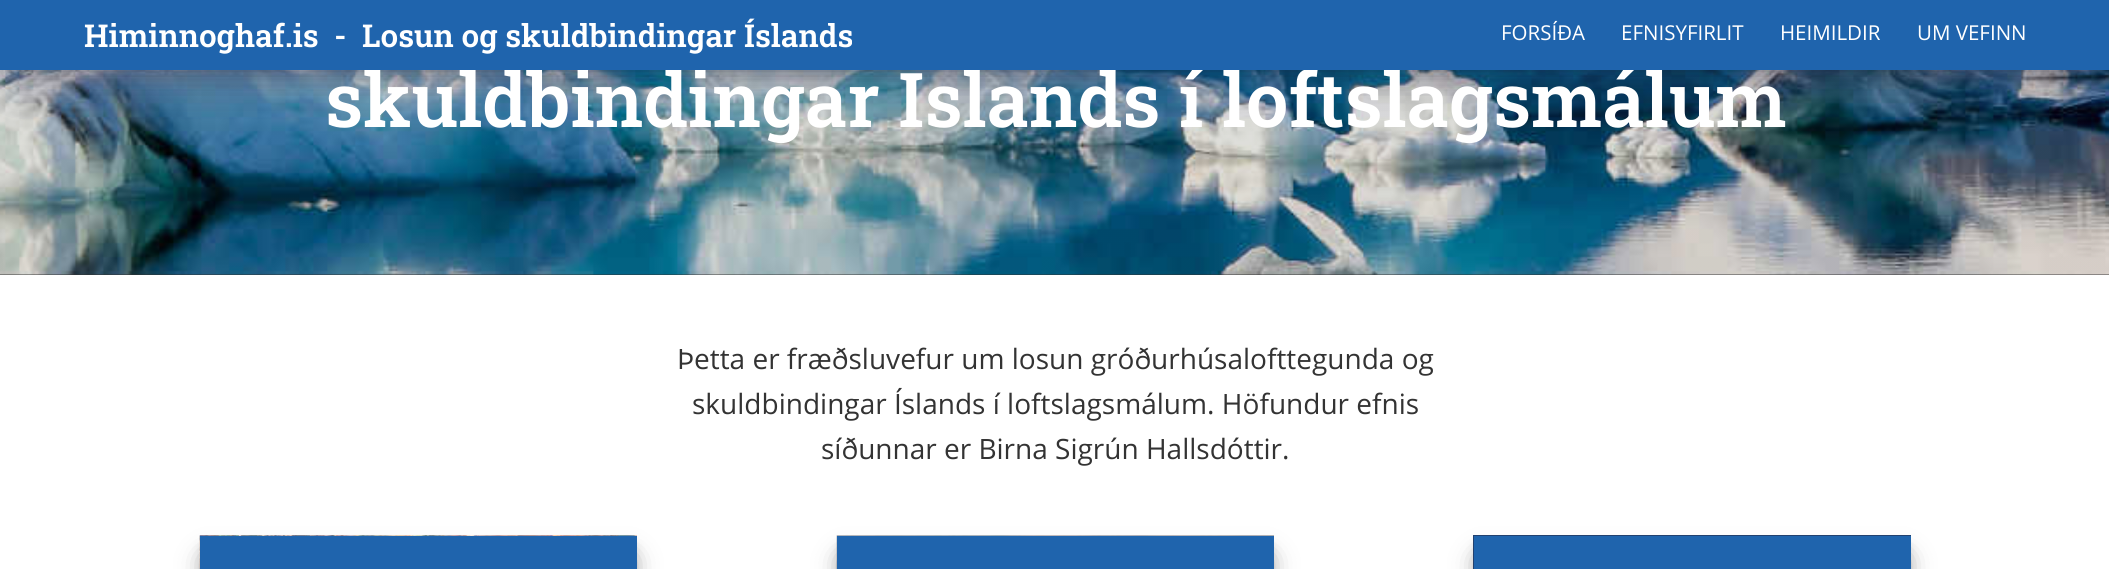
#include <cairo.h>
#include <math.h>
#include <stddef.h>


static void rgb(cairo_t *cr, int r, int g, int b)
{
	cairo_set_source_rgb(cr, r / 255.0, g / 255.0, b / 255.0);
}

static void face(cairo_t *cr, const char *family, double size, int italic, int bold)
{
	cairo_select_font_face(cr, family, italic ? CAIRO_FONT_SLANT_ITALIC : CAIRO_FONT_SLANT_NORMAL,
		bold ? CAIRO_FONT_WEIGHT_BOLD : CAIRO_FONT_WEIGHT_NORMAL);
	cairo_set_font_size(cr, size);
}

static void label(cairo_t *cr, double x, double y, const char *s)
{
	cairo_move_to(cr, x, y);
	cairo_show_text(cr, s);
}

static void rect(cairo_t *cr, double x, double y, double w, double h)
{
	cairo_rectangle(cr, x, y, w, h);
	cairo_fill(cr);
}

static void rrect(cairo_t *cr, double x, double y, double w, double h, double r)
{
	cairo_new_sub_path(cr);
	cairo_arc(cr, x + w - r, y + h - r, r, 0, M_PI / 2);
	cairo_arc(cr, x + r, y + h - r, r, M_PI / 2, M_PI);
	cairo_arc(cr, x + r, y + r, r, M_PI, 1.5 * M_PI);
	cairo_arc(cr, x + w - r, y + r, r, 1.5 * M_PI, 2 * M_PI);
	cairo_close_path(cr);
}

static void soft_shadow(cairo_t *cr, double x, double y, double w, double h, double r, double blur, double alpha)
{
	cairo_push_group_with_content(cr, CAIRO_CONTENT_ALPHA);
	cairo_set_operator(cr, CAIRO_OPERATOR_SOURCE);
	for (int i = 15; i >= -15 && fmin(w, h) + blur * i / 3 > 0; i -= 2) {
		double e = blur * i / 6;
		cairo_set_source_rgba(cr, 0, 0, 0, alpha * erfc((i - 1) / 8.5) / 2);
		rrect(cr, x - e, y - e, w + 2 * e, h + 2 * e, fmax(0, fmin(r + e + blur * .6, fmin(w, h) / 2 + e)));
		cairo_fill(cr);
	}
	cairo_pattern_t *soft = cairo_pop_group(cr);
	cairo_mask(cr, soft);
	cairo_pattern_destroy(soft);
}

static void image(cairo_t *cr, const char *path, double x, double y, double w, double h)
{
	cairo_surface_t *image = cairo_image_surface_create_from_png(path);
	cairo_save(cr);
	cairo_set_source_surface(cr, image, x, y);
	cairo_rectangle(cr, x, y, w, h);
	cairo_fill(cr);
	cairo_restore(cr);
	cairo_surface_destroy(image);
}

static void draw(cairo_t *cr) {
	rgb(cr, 255, 255, 255);
	cairo_paint(cr);
	rgb(cr, 51, 51, 51);
	rect(cr, 0, 274, 2109, 1);
	image(cr, "image0.png", 0, 70, 2109, 205);
	rgb(cr, 0, 0, 0);
	soft_shadow(cr, 14, 28, 2083, 42, 0, 14, 0.4);
	rgb(cr, 50, 50, 93);
	soft_shadow(cr, 9, 32, 2093, 52, 0, 23.5, 0.3);
	face(cr, "Roboto Slab SemiBold", 75.6, 0, 0);
	rgb(cr, 255, 255, 255);
	label(cr, 325, 127, "skuldbindingar Íslands í loftslagsmálum");
	rgb(cr, 31, 100, 173);
	rect(cr, 0, 0, 2109, 70);
	face(cr, "Roboto Slab SemiBold", 31.5, 0, 0);
	rgb(cr, 255, 255, 255);
	label(cr, 84, 47, "Himinnoghaf.is");
	label(cr, 334, 47, "-");
	label(cr, 362, 47, "Losun og skuldbindingar Íslands");
	face(cr, "Open Sans", 20.5, 0, 0);
	label(cr, 1501, 40, "FORSÍÐA");
	label(cr, 1621, 40, "EFNISYFIRLIT");
	label(cr, 1780, 40, "HEIMILDIR");
	label(cr, 1917, 40, "UM VEFINN");
	face(cr, "Open Sans", 28, 0, 0);
	rgb(cr, 51, 51, 51);
	label(cr, 677, 369, "Þetta er fræðsluvefur um losun gróðurhúsalofttegunda og");
	label(cr, 692, 414, "skuldbindingar Íslands í loftslagsmálum. Höfundur efnis");
	label(cr, 821, 459, "síðunnar er Birna Sigrún Hallsdóttir.");
	rgb(cr, 0, 0, 0);
	soft_shadow(cr, 203, 546, 431, 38, 0, 5, 0.2);
	soft_shadow(cr, 205, 558, 427, 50, 0, 13, 0.4);
	image(cr, "image1.png", 199, 535, 438, 34);
	rgb(cr, 31, 100, 173);
	rect(cr, 200, 536, 437, 33);
	rgb(cr, 0, 0, 0);
	soft_shadow(cr, 840, 546, 431, 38, 0, 5, 0.2);
	soft_shadow(cr, 842, 558, 427, 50, 0, 13, 0.4);
	image(cr, "image2.png", 836, 535, 438, 34);
	rgb(cr, 31, 100, 173);
	rect(cr, 837, 536, 437, 33);
	rgb(cr, 0, 0, 0);
	soft_shadow(cr, 1477, 546, 431, 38, 0, 5, 0.2);
	soft_shadow(cr, 1479, 558, 427, 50, 0, 13, 0.4);
	rgb(cr, 34, 65, 111);
	rect(cr, 1473, 535, 438, 34);
	rgb(cr, 31, 100, 173);
	rect(cr, 1474, 536, 437, 33);
}

int main(void) {
	cairo_surface_t *surface = cairo_image_surface_create(CAIRO_FORMAT_RGB24, 2109, 569);
	cairo_t *cr = cairo_create(surface);
	cairo_font_options_t *options = cairo_font_options_create();
	cairo_font_options_set_hint_metrics(options, CAIRO_HINT_METRICS_OFF);
	cairo_font_options_set_hint_style(options, CAIRO_HINT_STYLE_NONE);
	cairo_set_font_options(cr, options);
	cairo_set_miter_limit(cr, 4);
	draw(cr);
	cairo_surface_write_to_png(surface, "render.png");
	cairo_font_options_destroy(options);
	cairo_destroy(cr);
	cairo_surface_destroy(surface);
	return 0;
}
